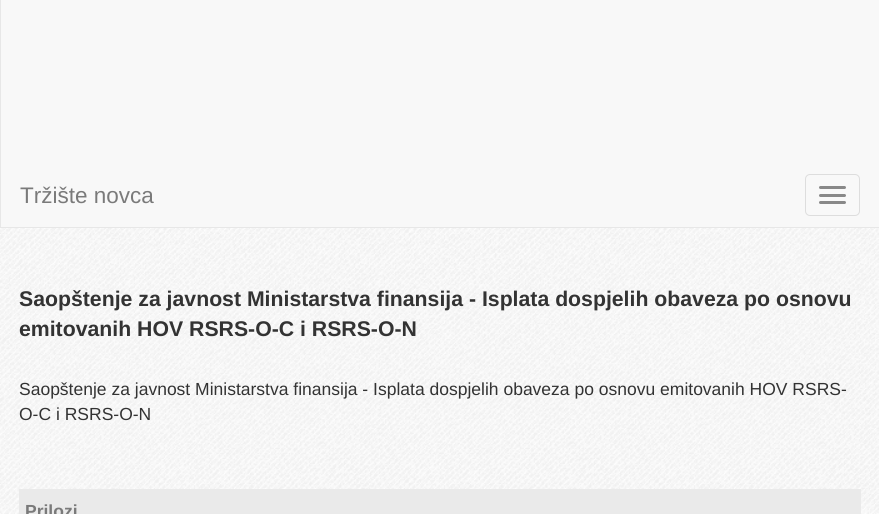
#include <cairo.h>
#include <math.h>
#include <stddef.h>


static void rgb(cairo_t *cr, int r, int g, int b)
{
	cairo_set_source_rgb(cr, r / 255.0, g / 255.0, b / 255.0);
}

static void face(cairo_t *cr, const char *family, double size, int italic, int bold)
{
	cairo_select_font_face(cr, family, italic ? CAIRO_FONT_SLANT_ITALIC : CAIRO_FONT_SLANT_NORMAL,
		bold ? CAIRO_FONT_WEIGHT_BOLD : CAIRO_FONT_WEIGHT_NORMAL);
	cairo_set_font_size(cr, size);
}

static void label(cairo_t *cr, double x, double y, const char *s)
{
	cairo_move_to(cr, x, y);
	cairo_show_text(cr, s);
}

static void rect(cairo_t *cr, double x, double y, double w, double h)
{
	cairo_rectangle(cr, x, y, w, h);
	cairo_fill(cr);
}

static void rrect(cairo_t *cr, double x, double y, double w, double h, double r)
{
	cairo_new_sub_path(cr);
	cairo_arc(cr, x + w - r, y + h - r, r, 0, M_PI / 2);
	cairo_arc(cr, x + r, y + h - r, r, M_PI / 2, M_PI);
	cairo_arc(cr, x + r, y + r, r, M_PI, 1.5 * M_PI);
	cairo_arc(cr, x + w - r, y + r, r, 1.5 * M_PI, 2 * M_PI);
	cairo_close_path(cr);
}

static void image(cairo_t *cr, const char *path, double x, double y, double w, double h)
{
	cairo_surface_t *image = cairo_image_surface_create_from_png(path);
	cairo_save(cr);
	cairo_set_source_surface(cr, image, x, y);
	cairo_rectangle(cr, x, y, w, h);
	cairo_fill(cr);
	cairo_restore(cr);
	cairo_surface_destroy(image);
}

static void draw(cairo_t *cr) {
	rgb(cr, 255, 255, 255);
	cairo_paint(cr);
	image(cr, "image0.png", 0, 228, 879, 286);
	rgb(cr, 248, 248, 248);
	cairo_rectangle(cr, 0.5, -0.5, 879, 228);
	cairo_fill_preserve(cr);
	rgb(cr, 231, 231, 231);
	cairo_set_line_width(cr, 1);
	cairo_stroke(cr);
	face(cr, "Liberation Sans", 22.5, 0, 0);
	rgb(cr, 122, 122, 122);
	label(cr, 20, 203, "Tržište novca");
	rrect(cr, 805.5, 174.5, 54, 41, 4.5);
	rgb(cr, 221, 221, 221);
	cairo_stroke(cr);
	rgb(cr, 136, 136, 136);
	rrect(cr, 819, 186, 27, 3, 1.5);
	cairo_fill(cr);
	rrect(cr, 819, 194, 27, 3, 1.5);
	cairo_fill(cr);
	rrect(cr, 819, 201, 27, 3, 1.5);
	cairo_fill(cr);
	face(cr, "Liberation Sans", 21.25, 0, 1);
	rgb(cr, 51, 51, 51);
	label(cr, 19, 306, "Saopštenje za javnost Ministarstva finansija - Isplata dospjelih obaveza po osnovu");
	label(cr, 19, 336, "emitovanih HOV RSRS-O-C i RSRS-O-N");
	face(cr, "Liberation Sans", 17.5, 0, 0);
	label(cr, 19, 395, "Saopštenje za javnost Ministarstva finansija - Isplata dospjelih obaveza po osnovu emitovanih HOV RSRS-");
	label(cr, 19, 420, "O-C i RSRS-O-N");
	rgb(cr, 234, 234, 234);
	rect(cr, 19, 489, 842, 25);
	face(cr, "Liberation Sans", 17.5, 0, 1);
	rgb(cr, 122, 122, 122);
	label(cr, 25, 517, "Prilozi");
}

int main(void) {
	cairo_surface_t *surface = cairo_image_surface_create(CAIRO_FORMAT_RGB24, 879, 514);
	cairo_t *cr = cairo_create(surface);
	cairo_font_options_t *options = cairo_font_options_create();
	cairo_font_options_set_hint_metrics(options, CAIRO_HINT_METRICS_OFF);
	cairo_font_options_set_hint_style(options, CAIRO_HINT_STYLE_NONE);
	cairo_set_font_options(cr, options);
	cairo_set_miter_limit(cr, 4);
	draw(cr);
	cairo_surface_write_to_png(surface, "render.png");
	cairo_font_options_destroy(options);
	cairo_destroy(cr);
	cairo_surface_destroy(surface);
	return 0;
}
